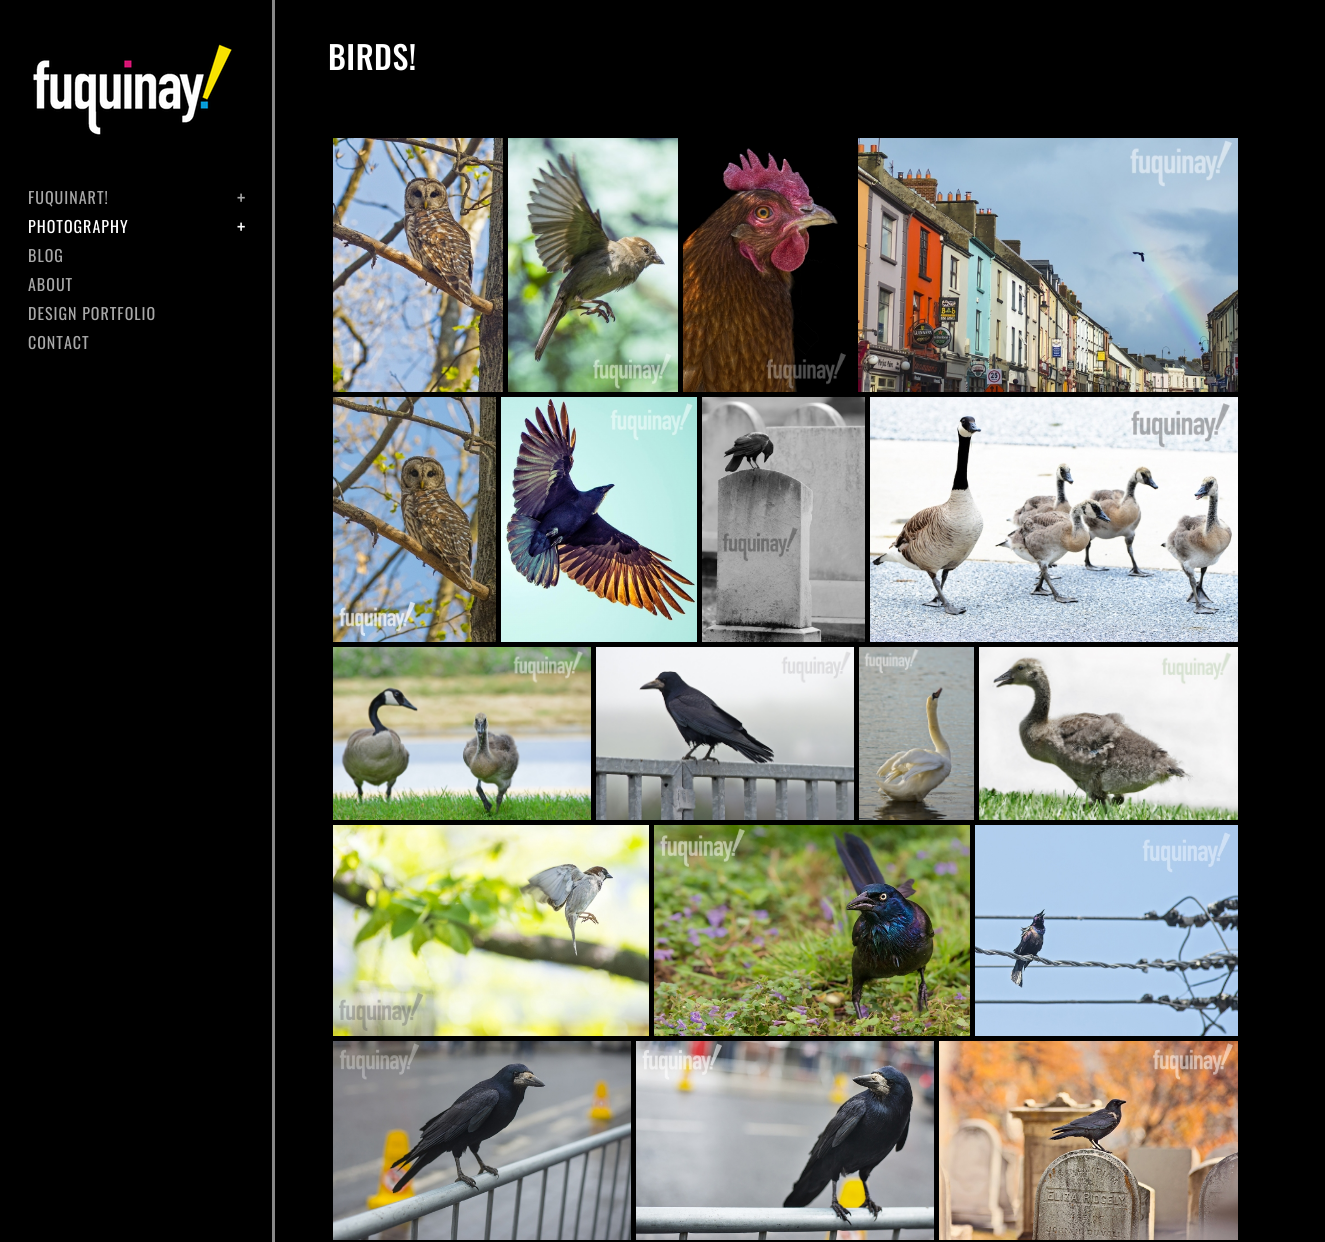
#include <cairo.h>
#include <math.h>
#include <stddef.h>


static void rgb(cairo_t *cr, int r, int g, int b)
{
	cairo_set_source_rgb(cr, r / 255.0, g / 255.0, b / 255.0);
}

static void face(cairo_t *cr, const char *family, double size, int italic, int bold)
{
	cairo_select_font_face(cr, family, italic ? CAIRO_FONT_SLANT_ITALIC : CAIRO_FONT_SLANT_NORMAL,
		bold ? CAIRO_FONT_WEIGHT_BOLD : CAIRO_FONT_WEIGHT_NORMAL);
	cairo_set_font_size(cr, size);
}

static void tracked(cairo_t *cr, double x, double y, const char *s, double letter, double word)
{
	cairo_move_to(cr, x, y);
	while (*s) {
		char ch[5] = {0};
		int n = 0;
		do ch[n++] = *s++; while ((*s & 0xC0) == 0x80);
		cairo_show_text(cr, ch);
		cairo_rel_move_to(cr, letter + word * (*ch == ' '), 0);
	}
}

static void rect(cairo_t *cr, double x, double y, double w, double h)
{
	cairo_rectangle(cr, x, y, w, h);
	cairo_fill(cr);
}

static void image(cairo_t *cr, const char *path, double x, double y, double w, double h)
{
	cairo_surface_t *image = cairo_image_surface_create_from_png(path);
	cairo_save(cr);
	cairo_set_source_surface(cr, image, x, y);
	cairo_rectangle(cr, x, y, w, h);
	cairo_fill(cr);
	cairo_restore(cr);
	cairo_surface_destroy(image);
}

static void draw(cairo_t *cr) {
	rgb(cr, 0, 0, 0);
	cairo_paint(cr);
	face(cr, "Oswald Medium", 32, 0, 0);
	rgb(cr, 255, 255, 255);
	tracked(cr, 328, 70, "BIRDS!", 0.5, 0);
	image(cr, "image0.png", 333, 138, 170, 254);
	image(cr, "image1.png", 508, 138, 170, 254);
	image(cr, "image2.png", 683, 148, 163, 244);
	image(cr, "image3.png", 858, 138, 380, 254);
	image(cr, "image4.png", 333, 397, 163, 245);
	image(cr, "image5.png", 501, 397, 196, 245);
	image(cr, "image6.png", 702, 397, 163, 245);
	image(cr, "image7.png", 870, 397, 368, 245);
	image(cr, "image8.png", 333, 647, 258, 173);
	image(cr, "image9.png", 596, 647, 258, 173);
	image(cr, "image10.png", 859, 647, 115, 173);
	image(cr, "image11.png", 979, 647, 259, 173);
	image(cr, "image12.png", 333, 825, 316, 211);
	image(cr, "image13.png", 654, 825, 316, 211);
	image(cr, "image14.png", 975, 825, 263, 211);
	image(cr, "image15.png", 333, 1041, 298, 199);
	image(cr, "image16.png", 636, 1041, 298, 199);
	image(cr, "image17.png", 939, 1041, 299, 199);
	rgb(cr, 136, 136, 136);
	rect(cr, 272, 0, 3, 1242);
	image(cr, "image18.png", 33, 44, 199, 93);
	face(cr, "Oswald", 16, 0, 0);
	rgb(cr, 168, 168, 168);
	tracked(cr, 28, 204, "FUQUINART!", 1, 0);
	face(cr, "Oswald", 20, 0, 0);
	tracked(cr, 237, 206, "+", 1, 0);
	face(cr, "Oswald", 16, 0, 0);
	rgb(cr, 255, 255, 255);
	tracked(cr, 28, 233, "PHOTOGRAPHY", 1, 0);
	face(cr, "Oswald", 20, 0, 0);
	tracked(cr, 237, 235, "+", 1, 0);
	face(cr, "Oswald", 16, 0, 0);
	rgb(cr, 168, 168, 168);
	tracked(cr, 28, 262, "BLOG", 1, 0);
	tracked(cr, 28, 291, "ABOUT", 1, 0);
	tracked(cr, 28, 320, "DESIGN PORTFOLIO", 1, 0);
	tracked(cr, 28, 349, "CONTACT", 1, 0);
}

int main(void) {
	cairo_surface_t *surface = cairo_image_surface_create(CAIRO_FORMAT_RGB24, 1325, 1242);
	cairo_t *cr = cairo_create(surface);
	cairo_font_options_t *options = cairo_font_options_create();
	cairo_font_options_set_hint_metrics(options, CAIRO_HINT_METRICS_OFF);
	cairo_font_options_set_hint_style(options, CAIRO_HINT_STYLE_NONE);
	cairo_set_font_options(cr, options);
	cairo_set_miter_limit(cr, 4);
	draw(cr);
	cairo_surface_write_to_png(surface, "render.png");
	cairo_font_options_destroy(options);
	cairo_destroy(cr);
	cairo_surface_destroy(surface);
	return 0;
}
